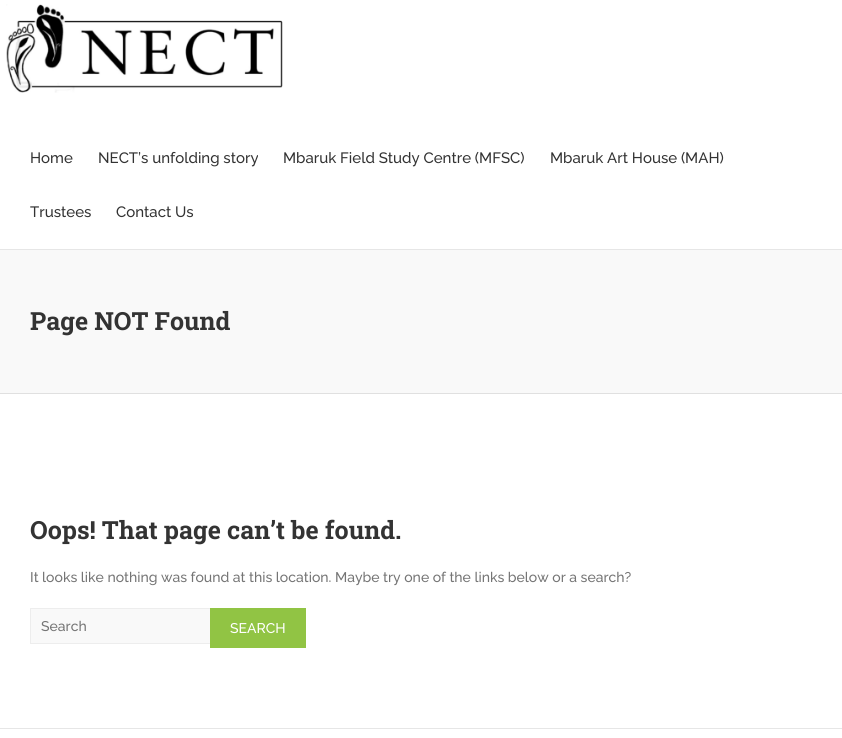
#include <cairo.h>
#include <math.h>
#include <stddef.h>


static void rgb(cairo_t *cr, int r, int g, int b)
{
	cairo_set_source_rgb(cr, r / 255.0, g / 255.0, b / 255.0);
}

static void face(cairo_t *cr, const char *family, double size, int italic, int bold)
{
	cairo_select_font_face(cr, family, italic ? CAIRO_FONT_SLANT_ITALIC : CAIRO_FONT_SLANT_NORMAL,
		bold ? CAIRO_FONT_WEIGHT_BOLD : CAIRO_FONT_WEIGHT_NORMAL);
	cairo_set_font_size(cr, size);
}

static void label(cairo_t *cr, double x, double y, const char *s)
{
	cairo_move_to(cr, x, y);
	cairo_show_text(cr, s);
}

static void rect(cairo_t *cr, double x, double y, double w, double h)
{
	cairo_rectangle(cr, x, y, w, h);
	cairo_fill(cr);
}

static void image(cairo_t *cr, const char *path, double x, double y, double w, double h)
{
	cairo_surface_t *image = cairo_image_surface_create_from_png(path);
	cairo_save(cr);
	cairo_set_source_surface(cr, image, x, y);
	cairo_rectangle(cr, x, y, w, h);
	cairo_fill(cr);
	cairo_restore(cr);
	cairo_surface_destroy(image);
}

static void draw(cairo_t *cr) {
	rgb(cr, 255, 255, 255);
	cairo_paint(cr);
	image(cr, "image0.png", 6, 4, 277, 89);
	rgb(cr, 230, 230, 230);
	rect(cr, 0, 249, 842, 1);
	face(cr, "Raleway Thin", 15, 0, 0);
	rgb(cr, 51, 51, 51);
	label(cr, 30, 163, "Home");
	label(cr, 98, 163, "NECT’s unfolding story");
	label(cr, 283, 163, "Mbaruk Field Study Centre (MFSC)");
	label(cr, 550, 163, "Mbaruk Art House (MAH)");
	label(cr, 30, 217, "Trustees");
	label(cr, 116, 217, "Contact Us");
	rgb(cr, 249, 249, 249);
	rect(cr, 0, 250, 842, 143);
	rgb(cr, 224, 224, 224);
	rect(cr, 0, 393, 842, 1);
	face(cr, "Roboto Slab", 25, 0, 1);
	rgb(cr, 51, 51, 51);
	label(cr, 30, 330, "Page NOT Found");
	label(cr, 30, 539, "Oops! That page can’t be found.");
	face(cr, "Raleway Thin", 14, 0, 0);
	rgb(cr, 117, 117, 117);
	label(cr, 30, 582, "It looks like nothing was found at this location. Maybe try one of the links below or a search?");
	rgb(cr, 249, 249, 249);
	rect(cr, 30, 608, 180, 36);
	rgb(cr, 237, 237, 237);
	cairo_new_path(cr);
	cairo_move_to(cr, 30, 608);
	cairo_line_to(cr, 210, 608);
	cairo_line_to(cr, 210, 609);
	cairo_line_to(cr, 31, 609);
	cairo_close_path(cr);
	cairo_fill(cr);
	cairo_new_path(cr);
	cairo_move_to(cr, 210, 644);
	cairo_line_to(cr, 30, 644);
	cairo_line_to(cr, 31, 643);
	cairo_line_to(cr, 210, 643);
	cairo_close_path(cr);
	cairo_fill(cr);
	cairo_set_source_rgba(cr, 0, 0, 0, 0.05);
	cairo_new_path(cr);
	cairo_move_to(cr, 30, 644);
	cairo_line_to(cr, 30, 608);
	cairo_line_to(cr, 31, 609);
	cairo_line_to(cr, 31, 643);
	cairo_close_path(cr);
	cairo_fill(cr);
	rgb(cr, 117, 117, 117);
	label(cr, 41, 631, "Search");
	rgb(cr, 145, 196, 68);
	rect(cr, 210, 608, 96, 40);
	rgb(cr, 255, 255, 255);
	label(cr, 230, 633, "SEARCH");
	rgb(cr, 230, 230, 230);
	rect(cr, 0, 728, 842, 1);
}

int main(void) {
	cairo_surface_t *surface = cairo_image_surface_create(CAIRO_FORMAT_RGB24, 842, 738);
	cairo_t *cr = cairo_create(surface);
	cairo_font_options_t *options = cairo_font_options_create();
	cairo_font_options_set_hint_metrics(options, CAIRO_HINT_METRICS_OFF);
	cairo_font_options_set_hint_style(options, CAIRO_HINT_STYLE_NONE);
	cairo_set_font_options(cr, options);
	cairo_set_miter_limit(cr, 4);
	draw(cr);
	cairo_surface_write_to_png(surface, "render.png");
	cairo_font_options_destroy(options);
	cairo_destroy(cr);
	cairo_surface_destroy(surface);
	return 0;
}
